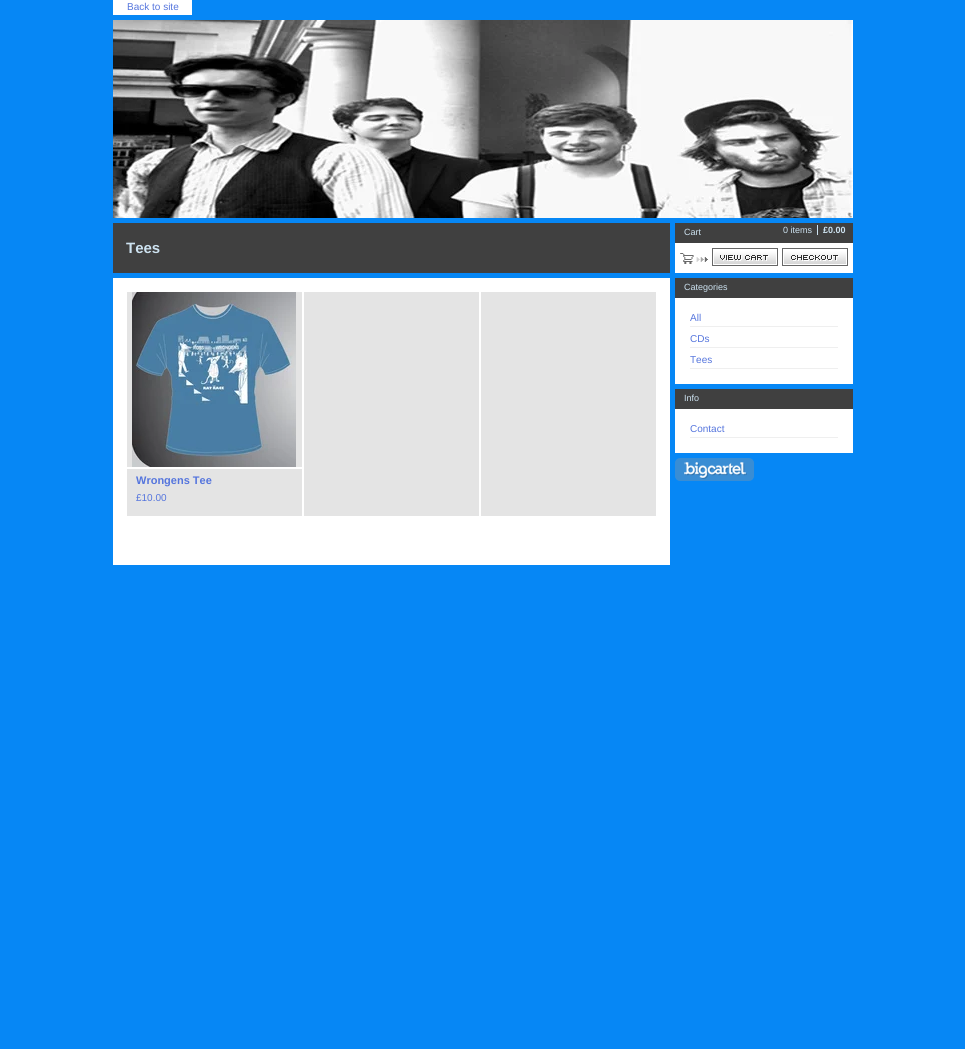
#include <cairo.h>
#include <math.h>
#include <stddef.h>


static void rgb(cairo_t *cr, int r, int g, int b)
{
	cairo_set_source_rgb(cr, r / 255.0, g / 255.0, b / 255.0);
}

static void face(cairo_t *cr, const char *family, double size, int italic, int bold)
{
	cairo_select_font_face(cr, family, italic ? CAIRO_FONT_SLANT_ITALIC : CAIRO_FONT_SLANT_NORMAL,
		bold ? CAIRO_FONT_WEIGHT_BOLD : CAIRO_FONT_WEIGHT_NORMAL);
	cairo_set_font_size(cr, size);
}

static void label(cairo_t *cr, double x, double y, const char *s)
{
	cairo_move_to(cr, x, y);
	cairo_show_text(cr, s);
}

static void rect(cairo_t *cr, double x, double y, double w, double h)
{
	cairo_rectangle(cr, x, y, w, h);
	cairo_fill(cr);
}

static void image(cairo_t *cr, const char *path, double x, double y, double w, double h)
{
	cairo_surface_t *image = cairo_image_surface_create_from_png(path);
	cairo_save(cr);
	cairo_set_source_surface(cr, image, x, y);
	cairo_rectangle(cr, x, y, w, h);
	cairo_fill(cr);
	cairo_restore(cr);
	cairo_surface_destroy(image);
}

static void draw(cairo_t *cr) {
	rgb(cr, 6, 135, 245);
	cairo_paint(cr);
	rgb(cr, 255, 255, 255);
	rect(cr, 113, 0, 79, 15);
	face(cr, "Liberation Sans", 10, 0, 0);
	rgb(cr, 85, 117, 221);
	label(cr, 127, 10, "Back to site");
	image(cr, "image0.png", 113, 20, 740, 198);
	rgb(cr, 64, 64, 64);
	rect(cr, 113, 223, 557, 50);
	face(cr, "Liberation Sans", 15, 0, 1);
	rgb(cr, 205, 226, 240);
	label(cr, 126, 253, "Tees");
	rgb(cr, 255, 255, 255);
	rect(cr, 113, 278, 557, 287);
	rgb(cr, 228, 228, 228);
	rect(cr, 127, 292, 529, 224);
	image(cr, "image1.png", 302, 292, 179, 224);
	image(cr, "image2.png", 132, 292, 164, 175);
	rgb(cr, 255, 255, 255);
	rect(cr, 127, 467, 175, 2);
	face(cr, "Liberation Sans", 11, 0, 1);
	rgb(cr, 85, 117, 221);
	label(cr, 136, 484, "Wrongens Tee");
	face(cr, "Liberation Sans", 10, 0, 0);
	label(cr, 136, 501, "£10.00");
	rgb(cr, 255, 255, 255);
	rect(cr, 675, 243, 178, 30);
	image(cr, "image3.png", 680, 253, 28, 11);
	rgb(cr, 64, 64, 64);
	rect(cr, 675, 223, 178, 20);
	face(cr, "Liberation Sans", 9, 0, 0);
	rgb(cr, 205, 226, 240);
	label(cr, 684, 235, "Cart");
	label(cr, 783, 233, "0 items");
	rect(cr, 817, 225, 1, 10);
	face(cr, "Liberation Sans", 9, 0, 1);
	label(cr, 823, 233, "£0.00");
	image(cr, "image4.png", 712, 248, 66, 18);
	image(cr, "image5.png", 782, 248, 66, 18);
	rgb(cr, 255, 255, 255);
	rect(cr, 675, 298, 178, 86);
	rgb(cr, 64, 64, 64);
	rect(cr, 675, 278, 178, 20);
	face(cr, "Liberation Sans", 9, 0, 0);
	rgb(cr, 205, 226, 240);
	label(cr, 684, 290, "Categories");
	rgb(cr, 239, 239, 239);
	rect(cr, 690, 326, 148, 1);
	face(cr, "Liberation Sans", 10, 0, 0);
	rgb(cr, 85, 117, 221);
	label(cr, 690, 321, "All");
	rgb(cr, 239, 239, 239);
	rect(cr, 690, 347, 148, 1);
	rgb(cr, 85, 117, 221);
	label(cr, 690, 342, "CDs");
	rgb(cr, 239, 239, 239);
	rect(cr, 690, 368, 148, 1);
	rgb(cr, 85, 117, 221);
	label(cr, 690, 363, "Tees");
	rgb(cr, 255, 255, 255);
	rect(cr, 675, 409, 178, 44);
	rgb(cr, 64, 64, 64);
	rect(cr, 675, 389, 178, 20);
	face(cr, "Liberation Sans", 9, 0, 0);
	rgb(cr, 205, 226, 240);
	label(cr, 684, 401, "Info");
	rgb(cr, 239, 239, 239);
	rect(cr, 690, 437, 148, 1);
	face(cr, "Liberation Sans", 10, 0, 0);
	rgb(cr, 85, 117, 221);
	label(cr, 690, 432, "Contact");
	image(cr, "image6.png", 675, 458, 79, 23);
}

int main(void) {
	cairo_surface_t *surface = cairo_image_surface_create(CAIRO_FORMAT_RGB24, 965, 1049);
	cairo_t *cr = cairo_create(surface);
	cairo_font_options_t *options = cairo_font_options_create();
	cairo_font_options_set_hint_metrics(options, CAIRO_HINT_METRICS_OFF);
	cairo_font_options_set_hint_style(options, CAIRO_HINT_STYLE_NONE);
	cairo_set_font_options(cr, options);
	cairo_set_miter_limit(cr, 4);
	draw(cr);
	cairo_surface_write_to_png(surface, "render.png");
	cairo_font_options_destroy(options);
	cairo_destroy(cr);
	cairo_surface_destroy(surface);
	return 0;
}
